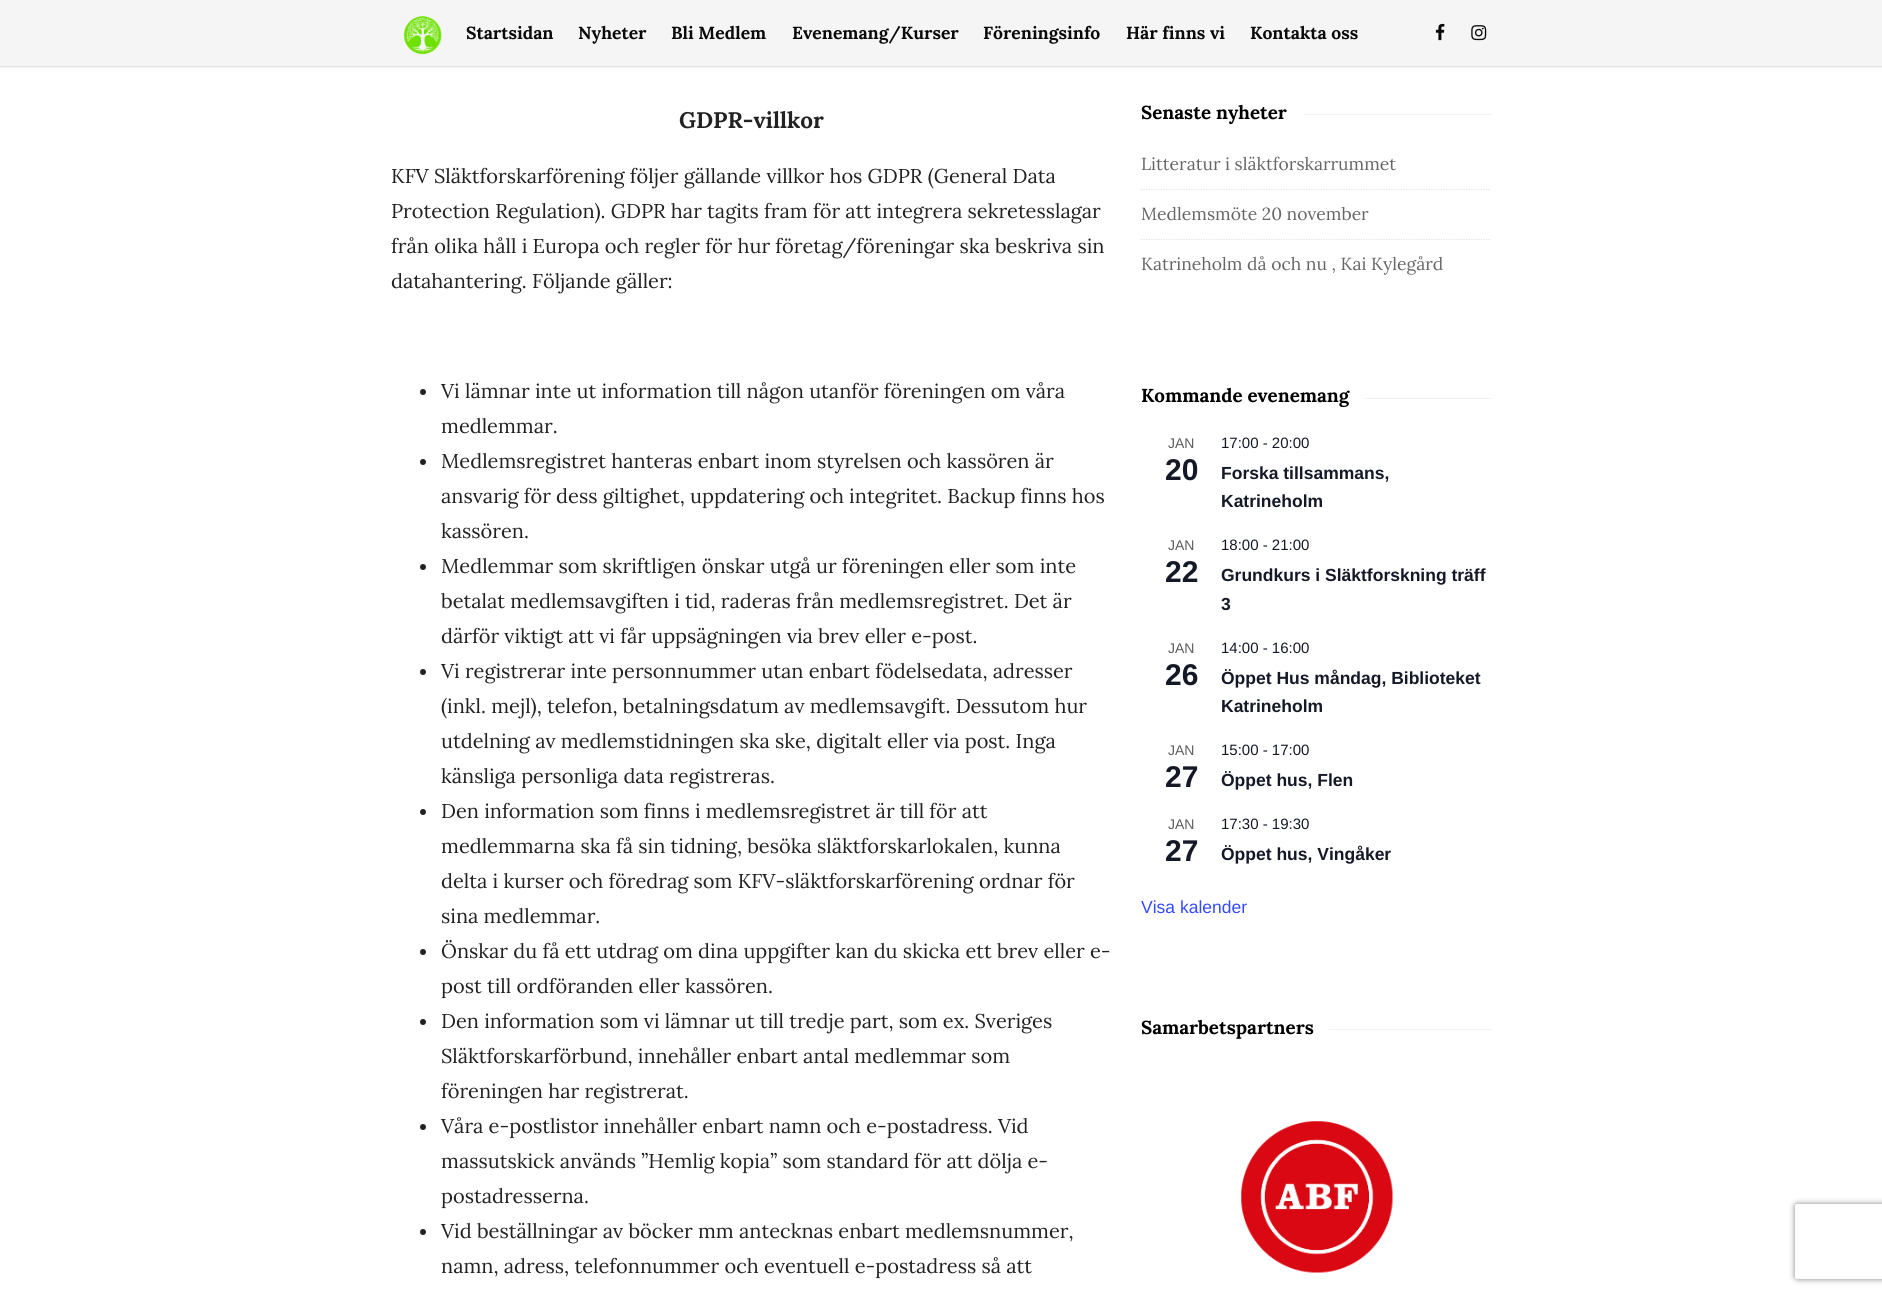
#include <cairo.h>
#include <math.h>
#include <stddef.h>


static void rgb(cairo_t *cr, int r, int g, int b)
{
	cairo_set_source_rgb(cr, r / 255.0, g / 255.0, b / 255.0);
}

static void face(cairo_t *cr, const char *family, double size, int italic, int bold)
{
	cairo_select_font_face(cr, family, italic ? CAIRO_FONT_SLANT_ITALIC : CAIRO_FONT_SLANT_NORMAL,
		bold ? CAIRO_FONT_WEIGHT_BOLD : CAIRO_FONT_WEIGHT_NORMAL);
	cairo_set_font_size(cr, size);
}

static void label(cairo_t *cr, double x, double y, const char *s)
{
	cairo_move_to(cr, x, y);
	cairo_show_text(cr, s);
}

static void rect(cairo_t *cr, double x, double y, double w, double h)
{
	cairo_rectangle(cr, x, y, w, h);
	cairo_fill(cr);
}

static void rrect(cairo_t *cr, double x, double y, double w, double h, double r)
{
	cairo_new_sub_path(cr);
	cairo_arc(cr, x + w - r, y + h - r, r, 0, M_PI / 2);
	cairo_arc(cr, x + r, y + h - r, r, M_PI / 2, M_PI);
	cairo_arc(cr, x + r, y + r, r, M_PI, 1.5 * M_PI);
	cairo_arc(cr, x + w - r, y + r, r, 1.5 * M_PI, 2 * M_PI);
	cairo_close_path(cr);
}

static void soft_shadow(cairo_t *cr, double x, double y, double w, double h, double r, double blur, double alpha)
{
	cairo_push_group_with_content(cr, CAIRO_CONTENT_ALPHA);
	cairo_set_operator(cr, CAIRO_OPERATOR_SOURCE);
	for (int i = 15; i >= -15 && fmin(w, h) + blur * i / 3 > 0; i -= 2) {
		double e = blur * i / 6;
		cairo_set_source_rgba(cr, 0, 0, 0, alpha * erfc((i - 1) / 8.5) / 2);
		rrect(cr, x - e, y - e, w + 2 * e, h + 2 * e, fmax(0, fmin(r + e + blur * .6, fmin(w, h) / 2 + e)));
		cairo_fill(cr);
	}
	cairo_pattern_t *soft = cairo_pop_group(cr);
	cairo_mask(cr, soft);
	cairo_pattern_destroy(soft);
}

static void image(cairo_t *cr, const char *path, double x, double y, double w, double h)
{
	cairo_surface_t *image = cairo_image_surface_create_from_png(path);
	cairo_save(cr);
	cairo_set_source_surface(cr, image, x, y);
	cairo_rectangle(cr, x, y, w, h);
	cairo_fill(cr);
	cairo_restore(cr);
	cairo_surface_destroy(image);
}

static void draw(cairo_t *cr) {
	rgb(cr, 255, 255, 255);
	cairo_paint(cr);
	rgb(cr, 245, 245, 245);
	rect(cr, 0, 0, 1882, 68);
	rgb(cr, 227, 227, 227);
	rect(cr, 0, 66, 1882, 1);
	image(cr, "image0.png", 403, 16, 39, 39);
	face(cr, "Lora", 17.5, 0, 1);
	rgb(cr, 10, 10, 10);
	label(cr, 466, 39, "Startsidan");
	label(cr, 578, 39, "Nyheter");
	label(cr, 671, 39, "Bli Medlem");
	label(cr, 792, 39, "Evenemang/Kurser");
	label(cr, 983, 39, "Föreningsinfo");
	label(cr, 1126, 39, "Här finns vi");
	label(cr, 1250, 39, "Kontakta oss");
	image(cr, "image1.png", 1435, 23, 10, 18);
	image(cr, "image2.png", 1471, 25, 16, 16);
	face(cr, "Lora", 22.5, 0, 1);
	rgb(cr, 34, 34, 34);
	label(cr, 679, 128, "GDPR-villkor");
	face(cr, "Lora", 20, 0, 0);
	label(cr, 391, 183, "KFV Släktforskarförening följer gällande villkor hos GDPR (General Data");
	label(cr, 391, 218, "Protection Regulation). GDPR har tagits fram för att integrera sekretesslagar");
	label(cr, 391, 253, "från olika håll i Europa och regler för hur företag/föreningar ska beskriva sin");
	label(cr, 391, 288, "datahantering. Följande gäller:");
	cairo_new_path(cr);
	cairo_arc(cr, 423, 392, 3, 0, 2 * M_PI);
	cairo_fill(cr);
	label(cr, 441, 398, "Vi lämnar inte ut information till någon utanför föreningen om våra");
	label(cr, 441, 433, "medlemmar.");
	cairo_new_path(cr);
	cairo_arc(cr, 423, 462, 3, 0, 2 * M_PI);
	cairo_fill(cr);
	label(cr, 441, 468, "Medlemsregistret hanteras enbart inom styrelsen och kassören är");
	label(cr, 441, 503, "ansvarig för dess giltighet, uppdatering och integritet. Backup finns hos");
	label(cr, 441, 538, "kassören.");
	cairo_new_path(cr);
	cairo_arc(cr, 423, 567, 3, 0, 2 * M_PI);
	cairo_fill(cr);
	label(cr, 441, 573, "Medlemmar som skriftligen önskar utgå ur föreningen eller som inte");
	label(cr, 441, 608, "betalat medlemsavgiften i tid, raderas från medlemsregistret. Det är");
	label(cr, 441, 643, "därför viktigt att vi får uppsägningen via brev eller e-post.");
	cairo_new_path(cr);
	cairo_arc(cr, 423, 672, 3, 0, 2 * M_PI);
	cairo_fill(cr);
	label(cr, 441, 678, "Vi registrerar inte personnummer utan enbart födelsedata, adresser");
	label(cr, 441, 713, "(inkl. mejl), telefon, betalningsdatum av medlemsavgift. Dessutom hur");
	label(cr, 441, 748, "utdelning av medlemstidningen ska ske, digitalt eller via post. Inga");
	label(cr, 441, 783, "känsliga personliga data registreras.");
	cairo_new_path(cr);
	cairo_arc(cr, 423, 812, 3, 0, 2 * M_PI);
	cairo_fill(cr);
	label(cr, 441, 818, "Den information som finns i medlemsregistret är till för att");
	label(cr, 441, 853, "medlemmarna ska få sin tidning, besöka släktforskarlokalen, kunna");
	label(cr, 441, 888, "delta i kurser och föredrag som KFV-släktforskarförening ordnar för");
	label(cr, 441, 923, "sina medlemmar.");
	cairo_new_path(cr);
	cairo_arc(cr, 423, 952, 3, 0, 2 * M_PI);
	cairo_fill(cr);
	label(cr, 441, 958, "Önskar du få ett utdrag om dina uppgifter kan du skicka ett brev eller e-");
	label(cr, 441, 993, "post till ordföranden eller kassören.");
	cairo_new_path(cr);
	cairo_arc(cr, 423, 1022, 3, 0, 2 * M_PI);
	cairo_fill(cr);
	label(cr, 441, 1028, "Den information som vi lämnar ut till tredje part, som ex. Sveriges");
	label(cr, 441, 1063, "Släktforskarförbund, innehåller enbart antal medlemmar som");
	label(cr, 441, 1098, "föreningen har registrerat.");
	cairo_new_path(cr);
	cairo_arc(cr, 423, 1127, 3, 0, 2 * M_PI);
	cairo_fill(cr);
	label(cr, 441, 1133, "Våra e-postlistor innehåller enbart namn och e-postadress. Vid");
	label(cr, 441, 1168, "massutskick används ”Hemlig kopia” som standard för att dölja e-");
	label(cr, 441, 1203, "postadresserna.");
	cairo_new_path(cr);
	cairo_arc(cr, 423, 1232, 3, 0, 2 * M_PI);
	cairo_fill(cr);
	label(cr, 441, 1238, "Vid beställningar av böcker mm antecknas enbart medlemsnummer,");
	label(cr, 441, 1273, "namn, adress, telefonnummer och eventuell e-postadress så att");
	face(cr, "Lora", 18.75, 0, 1);
	rgb(cr, 0, 0, 0);
	label(cr, 1141, 119, "Senaste nyheter");
	rgb(cr, 242, 242, 242);
	rect(cr, 1303, 114, 188, 1);
	cairo_new_path(cr);
	cairo_move_to(cr, 1141, 189.5);
	cairo_line_to(cr, 1491, 189.5);
	rgb(cr, 227, 227, 227);
	cairo_set_line_width(cr, 1.2);
	cairo_set_dash(cr, (double[]){1.25, 1.25}, 2, 0);
	cairo_stroke(cr);
	face(cr, "Lora", 17.5, 0, 0);
	rgb(cr, 102, 102, 102);
	label(cr, 1141, 170, "Litteratur i släktforskarrummet");
	cairo_new_path(cr);
	cairo_move_to(cr, 1141, 239.5);
	cairo_line_to(cr, 1491, 239.5);
	rgb(cr, 227, 227, 227);
	cairo_stroke(cr);
	rgb(cr, 102, 102, 102);
	label(cr, 1141, 220, "Medlemsmöte 20 november");
	label(cr, 1141, 270, "Katrineholm då och nu , Kai Kylegård");
	face(cr, "Lora", 18.75, 0, 1);
	rgb(cr, 0, 0, 0);
	label(cr, 1141, 402, "Kommande evenemang");
	rgb(cr, 242, 242, 242);
	rect(cr, 1365, 398, 126, 1);
	face(cr, "Liberation Sans", 14, 0, 0);
	rgb(cr, 93, 93, 93);
	label(cr, 1168, 448, "JAN");
	face(cr, "Liberation Sans", 30, 0, 1);
	rgb(cr, 20, 24, 39);
	label(cr, 1165, 480, "20");
	face(cr, "Liberation Sans", 15, 0, 0);
	label(cr, 1221, 448, "17:00 - 20:00");
	face(cr, "Liberation Sans", 17.5, 0, 1);
	label(cr, 1221, 479, "Forska tillsammans,");
	label(cr, 1221, 507, "Katrineholm");
	face(cr, "Liberation Sans", 14, 0, 0);
	rgb(cr, 93, 93, 93);
	label(cr, 1168, 550, "JAN");
	face(cr, "Liberation Sans", 30, 0, 1);
	rgb(cr, 20, 24, 39);
	label(cr, 1165, 582, "22");
	face(cr, "Liberation Sans", 15, 0, 0);
	label(cr, 1221, 550, "18:00 - 21:00");
	face(cr, "Liberation Sans", 17.5, 0, 1);
	label(cr, 1221, 581, "Grundkurs i Släktforskning träff");
	label(cr, 1221, 610, "3");
	face(cr, "Liberation Sans", 14, 0, 0);
	rgb(cr, 93, 93, 93);
	label(cr, 1168, 653, "JAN");
	face(cr, "Liberation Sans", 30, 0, 1);
	rgb(cr, 20, 24, 39);
	label(cr, 1165, 685, "26");
	face(cr, "Liberation Sans", 15, 0, 0);
	label(cr, 1221, 653, "14:00 - 16:00");
	face(cr, "Liberation Sans", 17.5, 0, 1);
	label(cr, 1221, 684, "Öppet Hus måndag, Biblioteket");
	label(cr, 1221, 712, "Katrineholm");
	face(cr, "Liberation Sans", 14, 0, 0);
	rgb(cr, 93, 93, 93);
	label(cr, 1168, 755, "JAN");
	face(cr, "Liberation Sans", 30, 0, 1);
	rgb(cr, 20, 24, 39);
	label(cr, 1165, 787, "27");
	face(cr, "Liberation Sans", 15, 0, 0);
	label(cr, 1221, 755, "15:00 - 17:00");
	face(cr, "Liberation Sans", 17.5, 0, 1);
	label(cr, 1221, 786, "Öppet hus, Flen");
	face(cr, "Liberation Sans", 14, 0, 0);
	rgb(cr, 93, 93, 93);
	label(cr, 1168, 829, "JAN");
	face(cr, "Liberation Sans", 30, 0, 1);
	rgb(cr, 20, 24, 39);
	label(cr, 1165, 861, "27");
	face(cr, "Liberation Sans", 15, 0, 0);
	label(cr, 1221, 829, "17:30 - 19:30");
	face(cr, "Liberation Sans", 17.5, 0, 1);
	label(cr, 1221, 860, "Öppet hus, Vingåker");
	face(cr, "Liberation Sans", 17.5, 0, 0);
	rgb(cr, 51, 74, 255);
	label(cr, 1141, 913, "Visa kalender");
	face(cr, "Lora", 18.75, 0, 1);
	rgb(cr, 0, 0, 0);
	label(cr, 1141, 1034, "Samarbetspartners");
	rgb(cr, 242, 242, 242);
	rect(cr, 1329, 1029, 162, 1);
	image(cr, "image3.png", 1241, 1121, 152, 152);
	cairo_save(cr);
	cairo_set_fill_rule(cr, CAIRO_FILL_RULE_EVEN_ODD);
	cairo_new_path(cr);
	cairo_move_to(cr, 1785, 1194);
	cairo_line_to(cr, 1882, 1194);
	cairo_line_to(cr, 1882, 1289);
	cairo_line_to(cr, 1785, 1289);
	cairo_close_path(cr);
	cairo_move_to(cr, 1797.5, 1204);
	cairo_line_to(cr, 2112.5, 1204);
	cairo_curve_to(cr, 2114, 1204, 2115, 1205, 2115, 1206.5);
	cairo_line_to(cr, 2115, 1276.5);
	cairo_curve_to(cr, 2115, 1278, 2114, 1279, 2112.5, 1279);
	cairo_line_to(cr, 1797.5, 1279);
	cairo_curve_to(cr, 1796, 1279, 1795, 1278, 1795, 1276.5);
	cairo_line_to(cr, 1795, 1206.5);
	cairo_curve_to(cr, 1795, 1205, 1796, 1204, 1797.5, 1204);
	cairo_close_path(cr);
	cairo_clip(cr);
	rgb(cr, 128, 128, 128);
	soft_shadow(cr, 1795, 1204, 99, 75, 2.5, 3, 1);
	cairo_restore(cr);
}

int main(void) {
	cairo_surface_t *surface = cairo_image_surface_create(CAIRO_FORMAT_RGB24, 1882, 1296);
	cairo_t *cr = cairo_create(surface);
	cairo_font_options_t *options = cairo_font_options_create();
	cairo_font_options_set_hint_metrics(options, CAIRO_HINT_METRICS_OFF);
	cairo_font_options_set_hint_style(options, CAIRO_HINT_STYLE_NONE);
	cairo_set_font_options(cr, options);
	cairo_set_miter_limit(cr, 4);
	draw(cr);
	cairo_surface_write_to_png(surface, "render.png");
	cairo_font_options_destroy(options);
	cairo_destroy(cr);
	cairo_surface_destroy(surface);
	return 0;
}
